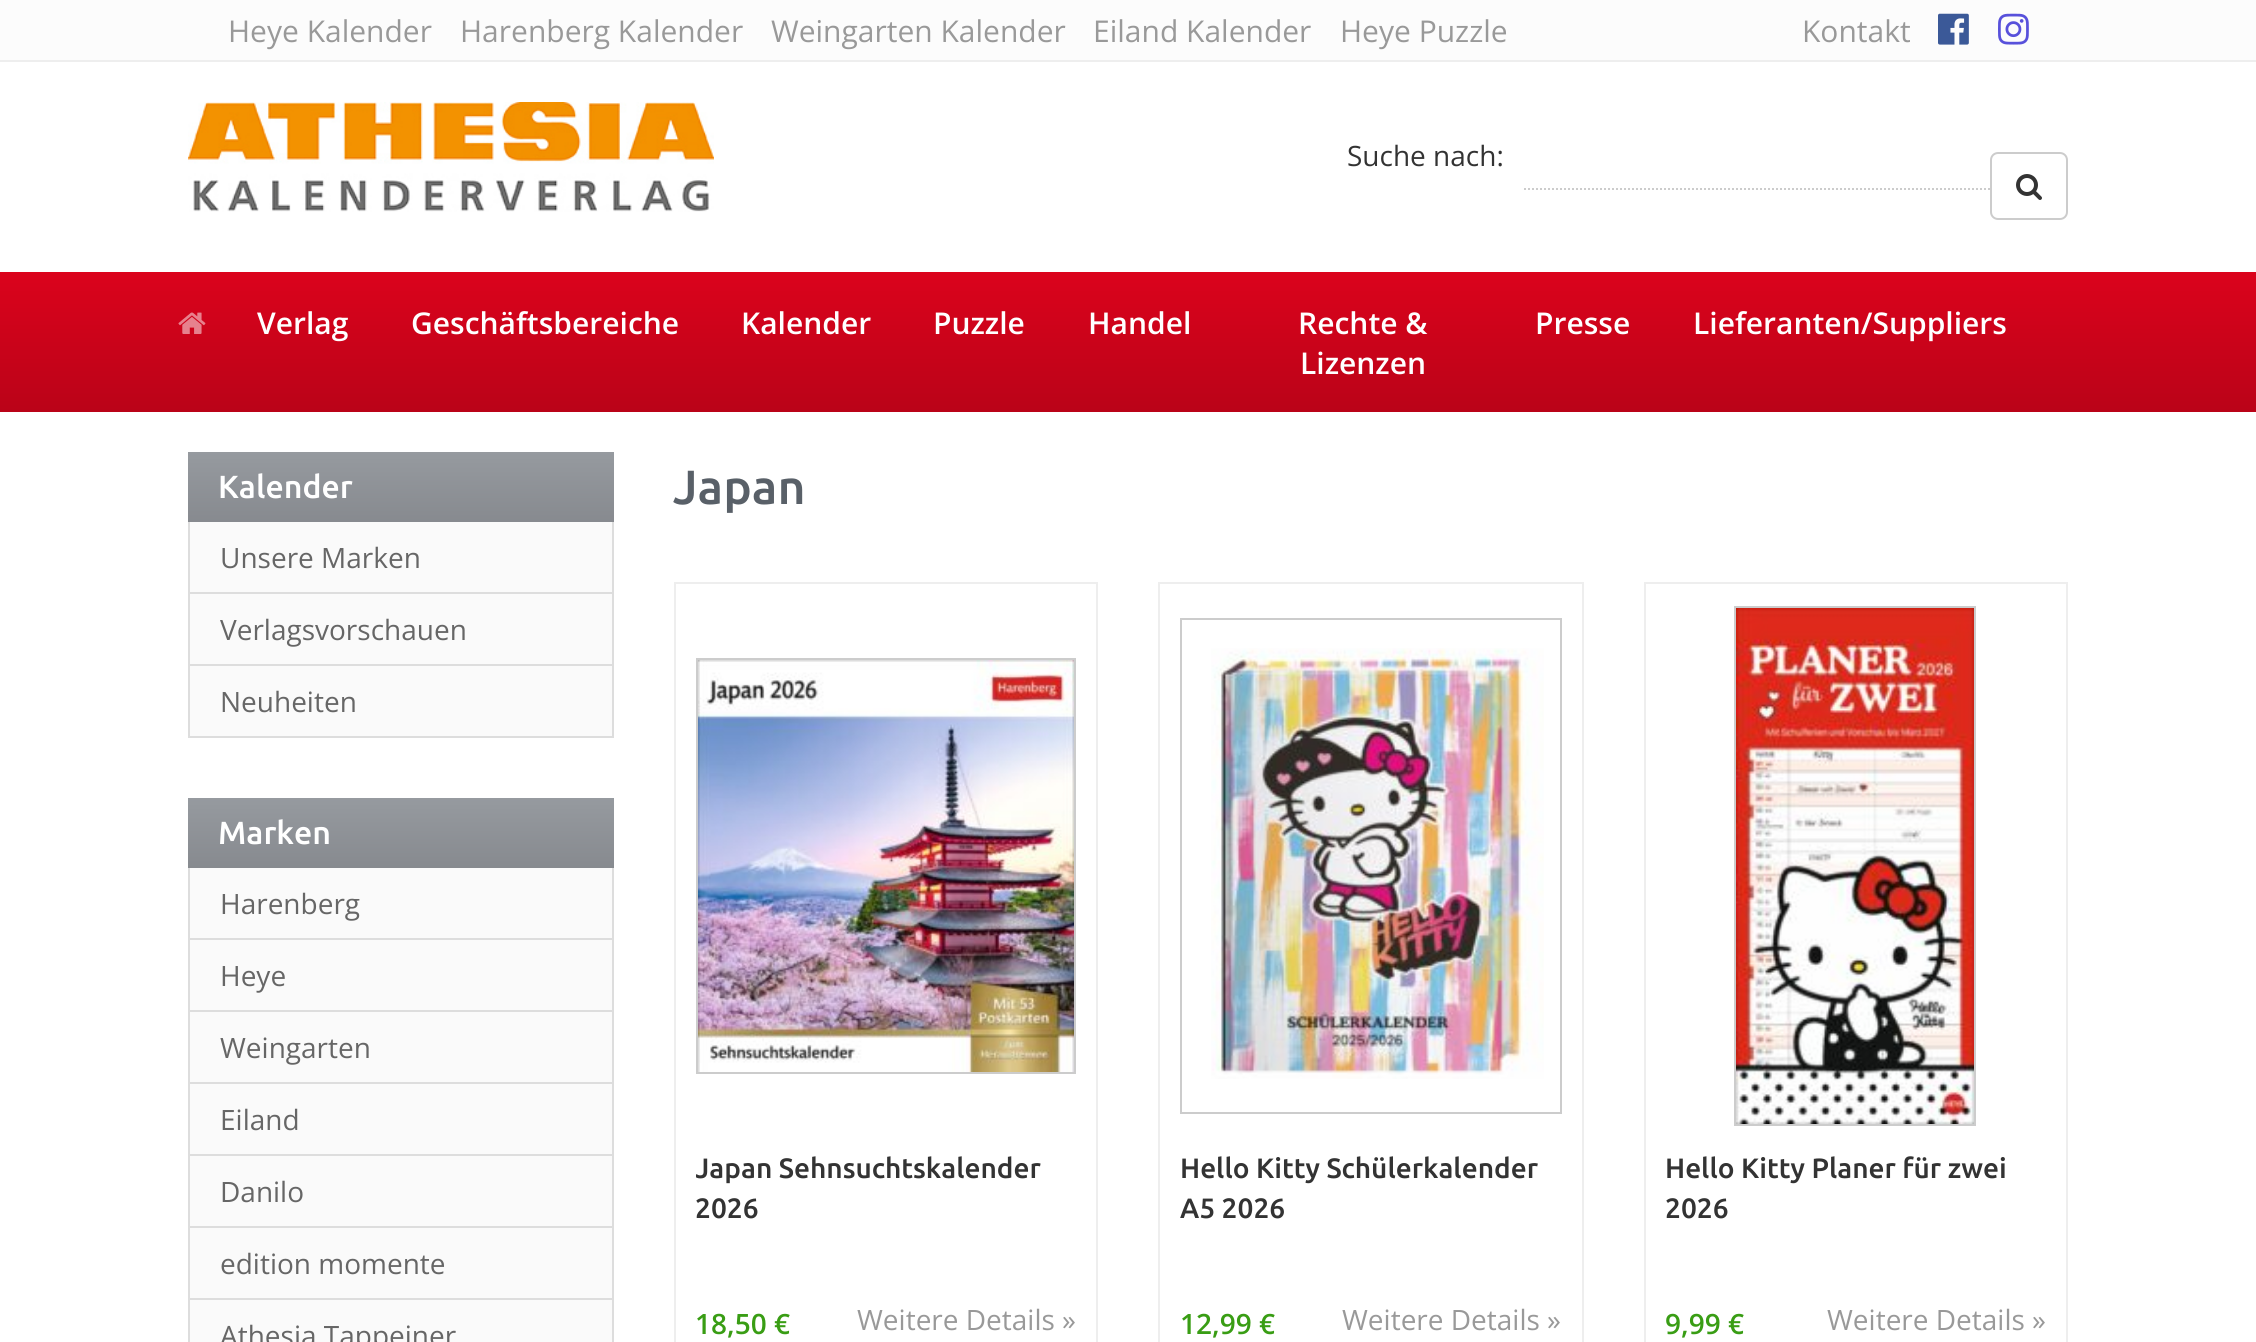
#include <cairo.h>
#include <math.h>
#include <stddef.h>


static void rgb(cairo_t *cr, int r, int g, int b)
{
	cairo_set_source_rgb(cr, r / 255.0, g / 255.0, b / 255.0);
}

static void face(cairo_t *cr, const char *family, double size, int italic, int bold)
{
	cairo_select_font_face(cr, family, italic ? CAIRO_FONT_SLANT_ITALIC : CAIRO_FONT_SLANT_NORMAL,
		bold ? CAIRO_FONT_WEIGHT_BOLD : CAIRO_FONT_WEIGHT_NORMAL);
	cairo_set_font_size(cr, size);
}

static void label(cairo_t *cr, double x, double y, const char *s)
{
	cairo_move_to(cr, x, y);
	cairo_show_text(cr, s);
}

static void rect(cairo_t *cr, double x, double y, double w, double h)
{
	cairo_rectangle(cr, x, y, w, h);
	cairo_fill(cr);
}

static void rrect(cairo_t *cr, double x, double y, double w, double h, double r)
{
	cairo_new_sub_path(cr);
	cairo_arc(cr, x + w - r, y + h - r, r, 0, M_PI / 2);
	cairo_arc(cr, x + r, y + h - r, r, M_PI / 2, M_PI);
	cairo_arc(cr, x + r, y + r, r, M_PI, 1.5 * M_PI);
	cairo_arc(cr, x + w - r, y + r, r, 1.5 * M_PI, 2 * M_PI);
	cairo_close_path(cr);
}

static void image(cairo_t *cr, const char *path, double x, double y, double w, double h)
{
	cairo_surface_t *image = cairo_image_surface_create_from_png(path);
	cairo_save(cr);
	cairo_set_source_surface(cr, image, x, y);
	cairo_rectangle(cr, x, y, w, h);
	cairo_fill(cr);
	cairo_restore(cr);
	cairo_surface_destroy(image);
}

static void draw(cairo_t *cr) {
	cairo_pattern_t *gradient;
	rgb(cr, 255, 255, 255);
	cairo_paint(cr);
	rgb(cr, 252, 252, 252);
	rect(cr, 0, 0, 2256, 60);
	rgb(cr, 238, 238, 238);
	rect(cr, 0, 60, 2256, 2);
	face(cr, "Open Sans", 30, 0, 0);
	rgb(cr, 153, 153, 153);
	label(cr, 228, 42, "Heye Kalender");
	label(cr, 460, 42, "Harenberg Kalender");
	label(cr, 771, 42, "Weingarten Kalender");
	label(cr, 1093, 42, "Eiland Kalender");
	label(cr, 1340, 42, "Heye Puzzle");
	label(cr, 1802, 42, "Kontakt");
	image(cr, "image0.png", 1938, 13, 31, 32);
	image(cr, "image1.png", 1998, 13, 31, 32);
	image(cr, "image2.png", 188, 102, 526, 110);
	face(cr, "Open Sans", 28, 0, 0);
	rgb(cr, 51, 51, 51);
	label(cr, 1347, 166, "Suche nach:");
	cairo_new_path(cr);
	cairo_move_to(cr, 1524, 189);
	cairo_line_to(cr, 1990, 189);
	rgb(cr, 204, 204, 204);
	cairo_set_dash(cr, (double[]){2, 2}, 2, 0);
	cairo_stroke(cr);
	rrect(cr, 1991, 153, 76, 66, 7);
	cairo_set_dash(cr, NULL, 0, 0);
	cairo_stroke(cr);
	image(cr, "image3.png", 2016, 174, 26, 26);
	gradient = cairo_pattern_create_linear(1128, 272, 1128, 412);
	cairo_pattern_add_color_stop_rgba(gradient, 0, 0.859, 0.012, 0.11, 1);
	cairo_pattern_add_color_stop_rgba(gradient, 1, 0.729, 0.012, 0.094, 1);
	cairo_set_source(cr, gradient);
	cairo_pattern_destroy(gradient);
	rect(cr, 0, 272, 2256, 140);
	image(cr, "image4.png", 178, 312, 28, 22);
	face(cr, "Open Sans SemiBold", 30, 0, 0);
	rgb(cr, 255, 255, 255);
	label(cr, 257, 334, "Verlag");
	label(cr, 411, 334, "Geschäftsbereiche");
	label(cr, 741, 334, "Kalender");
	label(cr, 933, 334, "Puzzle");
	label(cr, 1088, 334, "Handel");
	label(cr, 1298, 334, "Rechte &");
	label(cr, 1300, 374, "Lizenzen");
	label(cr, 1535, 334, "Presse");
	label(cr, 1693, 334, "Lieferanten/Suppliers");
	rgb(cr, 250, 250, 250);
	rect(cr, 190, 522, 422, 214);
	cairo_rectangle(cr, 189, 453, 424, 284);
	rgb(cr, 221, 221, 221);
	cairo_stroke(cr);
	gradient = cairo_pattern_create_linear(401, 452, 401, 522);
	cairo_pattern_add_color_stop_rgba(gradient, 0, 0.588, 0.604, 0.624, 1);
	cairo_pattern_add_color_stop_rgba(gradient, 1, 0.529, 0.541, 0.561, 1);
	cairo_set_source(cr, gradient);
	cairo_pattern_destroy(gradient);
	rect(cr, 188, 452, 426, 70);
	face(cr, "Ubuntu Medium", 32, 0, 0);
	rgb(cr, 255, 255, 255);
	label(cr, 218, 498, "Kalender");
	rgb(cr, 221, 221, 221);
	rect(cr, 190, 592, 422, 2);
	face(cr, "Open Sans", 28, 0, 0);
	rgb(cr, 102, 102, 102);
	label(cr, 220, 568, "Unsere Marken");
	rgb(cr, 221, 221, 221);
	rect(cr, 190, 664, 422, 2);
	rgb(cr, 102, 102, 102);
	label(cr, 220, 640, "Verlagsvorschauen");
	label(cr, 220, 712, "Neuheiten");
	rgb(cr, 250, 250, 250);
	rect(cr, 190, 868, 422, 474);
	cairo_rectangle(cr, 189, 799, 424, 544);
	rgb(cr, 221, 221, 221);
	cairo_stroke(cr);
	gradient = cairo_pattern_create_linear(401, 798, 401, 868);
	cairo_pattern_add_color_stop_rgba(gradient, 0, 0.588, 0.604, 0.624, 1);
	cairo_pattern_add_color_stop_rgba(gradient, 1, 0.529, 0.541, 0.561, 1);
	cairo_set_source(cr, gradient);
	cairo_pattern_destroy(gradient);
	rect(cr, 188, 798, 426, 70);
	face(cr, "Ubuntu Medium", 32, 0, 0);
	rgb(cr, 255, 255, 255);
	label(cr, 218, 844, "Marken");
	rgb(cr, 221, 221, 221);
	rect(cr, 190, 938, 422, 2);
	face(cr, "Open Sans", 28, 0, 0);
	rgb(cr, 102, 102, 102);
	label(cr, 220, 914, "Harenberg");
	rgb(cr, 221, 221, 221);
	rect(cr, 190, 1010, 422, 2);
	rgb(cr, 102, 102, 102);
	label(cr, 220, 986, "Heye");
	rgb(cr, 221, 221, 221);
	rect(cr, 190, 1082, 422, 2);
	rgb(cr, 102, 102, 102);
	label(cr, 220, 1058, "Weingarten");
	rgb(cr, 221, 221, 221);
	rect(cr, 190, 1154, 422, 2);
	rgb(cr, 102, 102, 102);
	label(cr, 220, 1130, "Eiland");
	rgb(cr, 221, 221, 221);
	rect(cr, 190, 1226, 422, 2);
	rgb(cr, 102, 102, 102);
	label(cr, 220, 1202, "Danilo");
	rgb(cr, 221, 221, 221);
	rect(cr, 190, 1298, 422, 2);
	rgb(cr, 102, 102, 102);
	label(cr, 220, 1274, "edition momente");
	label(cr, 220, 1346, "Athesia Tappeiner");
	face(cr, "Ubuntu Medium", 48, 0, 0);
	rgb(cr, 89, 96, 104);
	label(cr, 673, 504, "Japan");
	cairo_rectangle(cr, 675, 583, 422, 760);
	rgb(cr, 238, 238, 238);
	cairo_stroke(cr);
	cairo_rectangle(cr, 697, 659, 378, 414);
	rgb(cr, 204, 204, 204);
	cairo_stroke(cr);
	image(cr, "image5.png", 698, 660, 376, 412);
	cairo_save(cr);
	cairo_rectangle(cr, 696, 1148, 380, 120);
	cairo_clip(cr);
	face(cr, "Ubuntu Medium", 28, 0, 0);
	rgb(cr, 51, 51, 51);
	label(cr, 695, 1178, "Japan Sehnsuchtskalender");
	cairo_restore(cr);
	face(cr, "Ubuntu Medium", 28, 0, 0);
	rgb(cr, 51, 51, 51);
	label(cr, 695, 1218, "2026");
	face(cr, "Open Sans SemiBold", 28, 0, 0);
	rgb(cr, 57, 157, 20);
	label(cr, 695, 1334, "18,50 €");
	face(cr, "Open Sans", 28, 0, 0);
	rgb(cr, 153, 153, 153);
	label(cr, 857, 1330, "Weitere Details »");
	cairo_rectangle(cr, 1159, 583, 424, 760);
	rgb(cr, 238, 238, 238);
	cairo_stroke(cr);
	cairo_rectangle(cr, 1181, 619, 380, 494);
	rgb(cr, 204, 204, 204);
	cairo_stroke(cr);
	image(cr, "image6.png", 1211, 648, 333, 431);
	face(cr, "Ubuntu Medium", 28, 0, 0);
	rgb(cr, 51, 51, 51);
	label(cr, 1180, 1178, "Hello Kitty Schülerkalender");
	label(cr, 1180, 1218, "A5 2026");
	face(cr, "Open Sans SemiBold", 28, 0, 0);
	rgb(cr, 57, 157, 20);
	label(cr, 1180, 1334, "12,99 €");
	face(cr, "Open Sans", 28, 0, 0);
	rgb(cr, 153, 153, 153);
	label(cr, 1342, 1330, "Weitere Details »");
	cairo_rectangle(cr, 1645, 583, 422, 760);
	rgb(cr, 238, 238, 238);
	cairo_stroke(cr);
	cairo_rectangle(cr, 1735, 607, 240, 518);
	rgb(cr, 204, 204, 204);
	cairo_stroke(cr);
	image(cr, "image7.png", 1736, 608, 238, 516);
	face(cr, "Ubuntu Medium", 28, 0, 0);
	rgb(cr, 51, 51, 51);
	label(cr, 1665, 1178, "Hello Kitty Planer für zwei");
	label(cr, 1665, 1218, "2026");
	face(cr, "Open Sans SemiBold", 28, 0, 0);
	rgb(cr, 57, 157, 20);
	label(cr, 1665, 1334, "9,99 €");
	face(cr, "Open Sans", 28, 0, 0);
	rgb(cr, 153, 153, 153);
	label(cr, 1827, 1330, "Weitere Details »");
}

int main(void) {
	cairo_surface_t *surface = cairo_image_surface_create(CAIRO_FORMAT_RGB24, 2256, 1342);
	cairo_t *cr = cairo_create(surface);
	cairo_font_options_t *options = cairo_font_options_create();
	cairo_font_options_set_hint_metrics(options, CAIRO_HINT_METRICS_OFF);
	cairo_font_options_set_hint_style(options, CAIRO_HINT_STYLE_NONE);
	cairo_set_font_options(cr, options);
	cairo_set_miter_limit(cr, 4);
	draw(cr);
	cairo_surface_write_to_png(surface, "render.png");
	cairo_font_options_destroy(options);
	cairo_destroy(cr);
	cairo_surface_destroy(surface);
	return 0;
}
